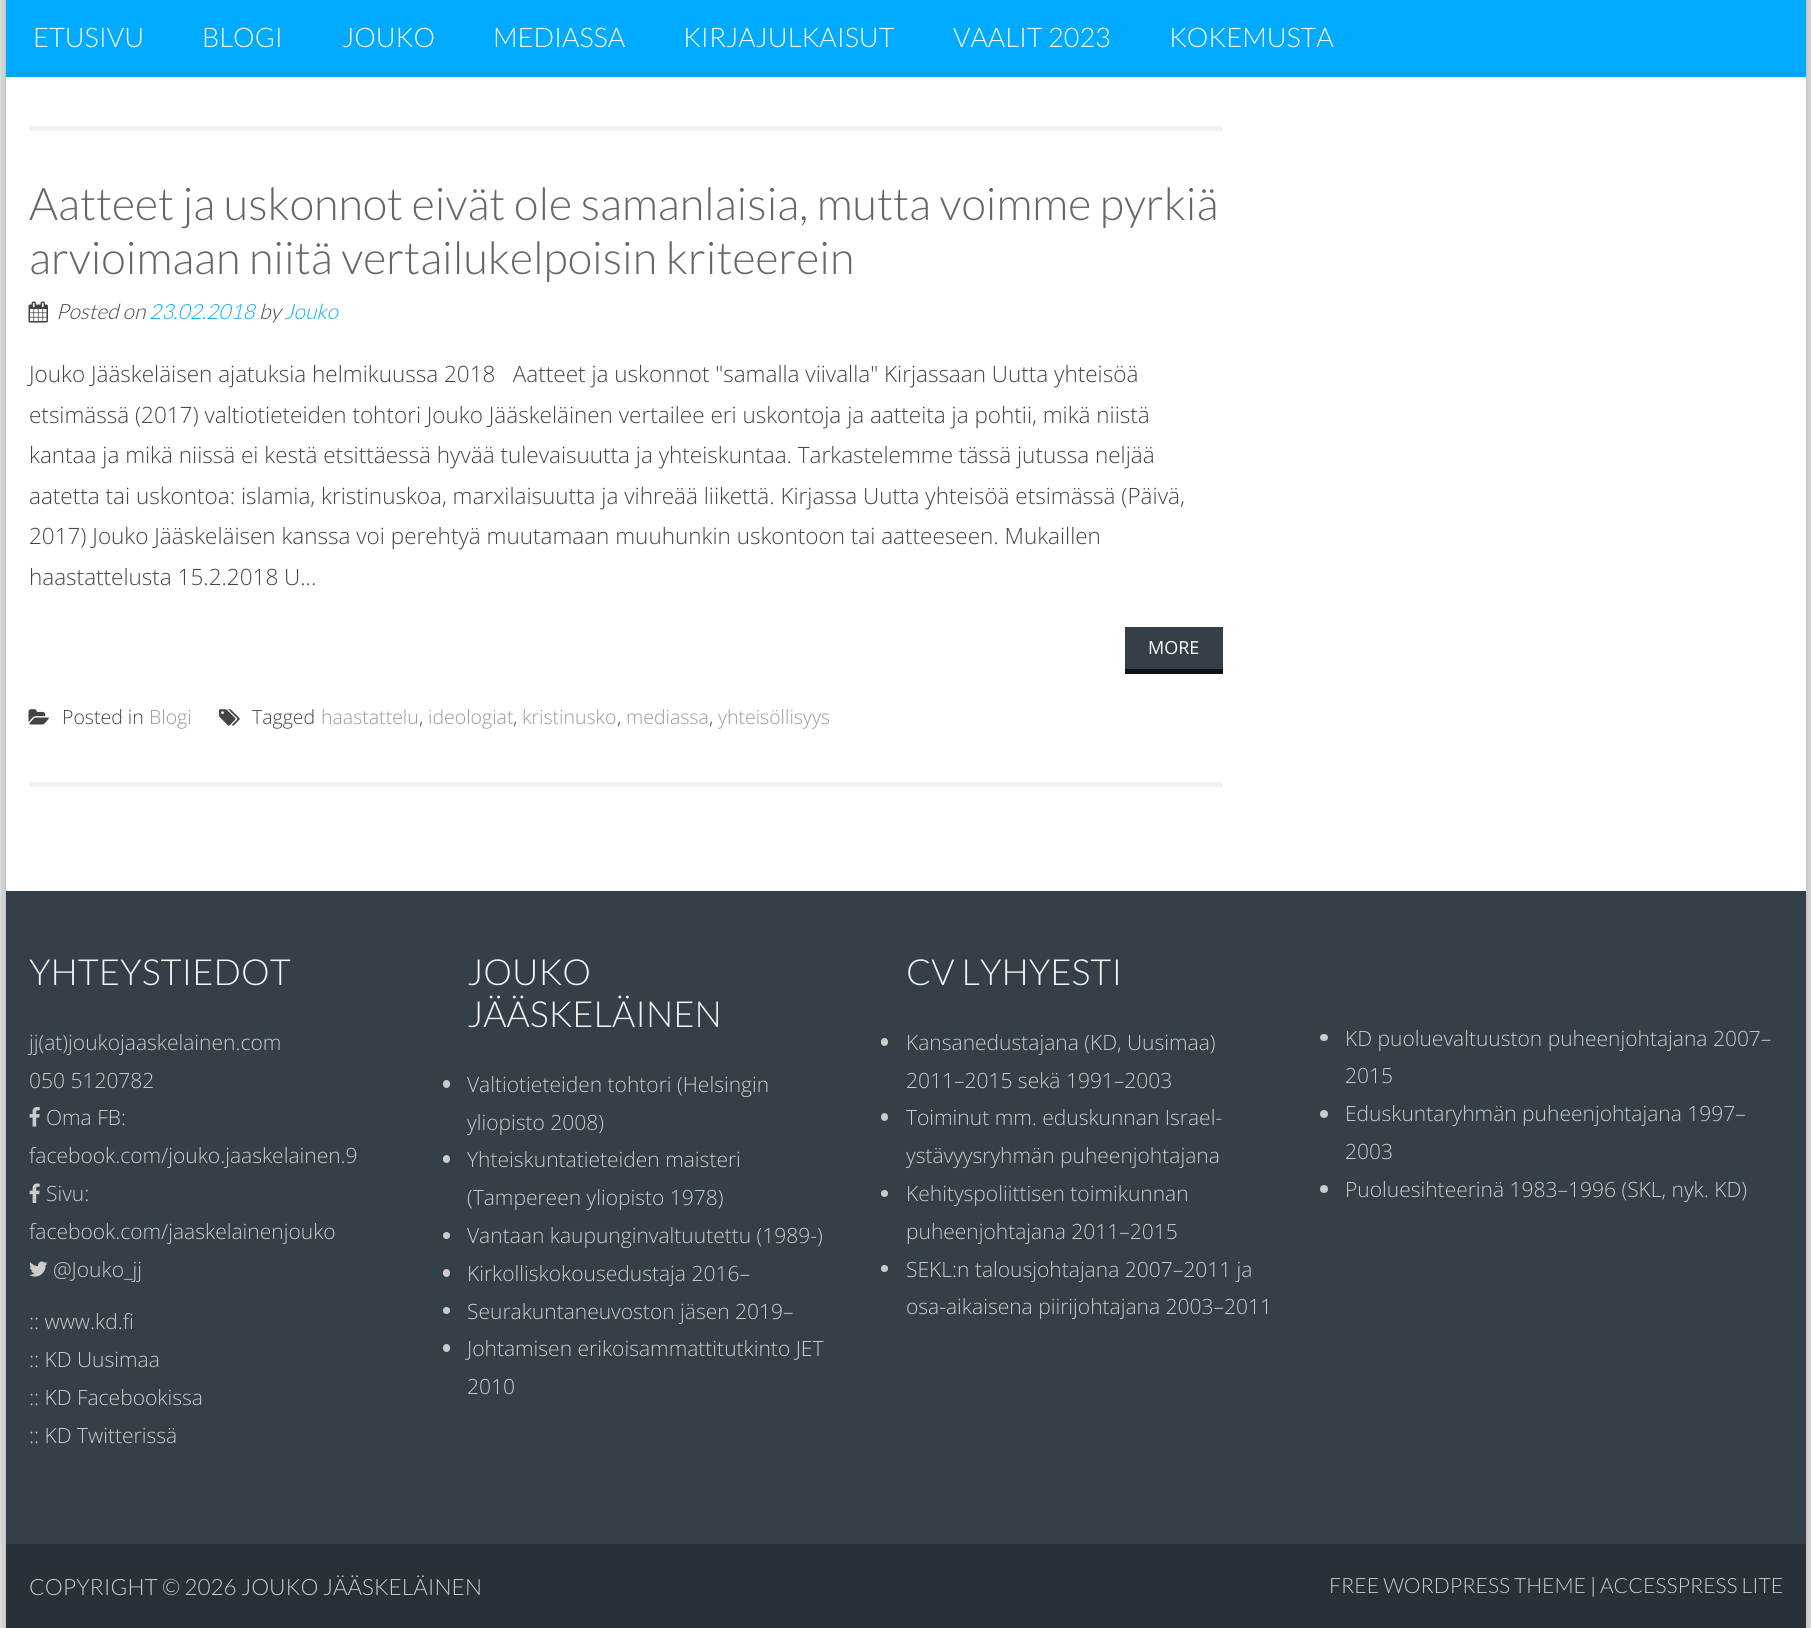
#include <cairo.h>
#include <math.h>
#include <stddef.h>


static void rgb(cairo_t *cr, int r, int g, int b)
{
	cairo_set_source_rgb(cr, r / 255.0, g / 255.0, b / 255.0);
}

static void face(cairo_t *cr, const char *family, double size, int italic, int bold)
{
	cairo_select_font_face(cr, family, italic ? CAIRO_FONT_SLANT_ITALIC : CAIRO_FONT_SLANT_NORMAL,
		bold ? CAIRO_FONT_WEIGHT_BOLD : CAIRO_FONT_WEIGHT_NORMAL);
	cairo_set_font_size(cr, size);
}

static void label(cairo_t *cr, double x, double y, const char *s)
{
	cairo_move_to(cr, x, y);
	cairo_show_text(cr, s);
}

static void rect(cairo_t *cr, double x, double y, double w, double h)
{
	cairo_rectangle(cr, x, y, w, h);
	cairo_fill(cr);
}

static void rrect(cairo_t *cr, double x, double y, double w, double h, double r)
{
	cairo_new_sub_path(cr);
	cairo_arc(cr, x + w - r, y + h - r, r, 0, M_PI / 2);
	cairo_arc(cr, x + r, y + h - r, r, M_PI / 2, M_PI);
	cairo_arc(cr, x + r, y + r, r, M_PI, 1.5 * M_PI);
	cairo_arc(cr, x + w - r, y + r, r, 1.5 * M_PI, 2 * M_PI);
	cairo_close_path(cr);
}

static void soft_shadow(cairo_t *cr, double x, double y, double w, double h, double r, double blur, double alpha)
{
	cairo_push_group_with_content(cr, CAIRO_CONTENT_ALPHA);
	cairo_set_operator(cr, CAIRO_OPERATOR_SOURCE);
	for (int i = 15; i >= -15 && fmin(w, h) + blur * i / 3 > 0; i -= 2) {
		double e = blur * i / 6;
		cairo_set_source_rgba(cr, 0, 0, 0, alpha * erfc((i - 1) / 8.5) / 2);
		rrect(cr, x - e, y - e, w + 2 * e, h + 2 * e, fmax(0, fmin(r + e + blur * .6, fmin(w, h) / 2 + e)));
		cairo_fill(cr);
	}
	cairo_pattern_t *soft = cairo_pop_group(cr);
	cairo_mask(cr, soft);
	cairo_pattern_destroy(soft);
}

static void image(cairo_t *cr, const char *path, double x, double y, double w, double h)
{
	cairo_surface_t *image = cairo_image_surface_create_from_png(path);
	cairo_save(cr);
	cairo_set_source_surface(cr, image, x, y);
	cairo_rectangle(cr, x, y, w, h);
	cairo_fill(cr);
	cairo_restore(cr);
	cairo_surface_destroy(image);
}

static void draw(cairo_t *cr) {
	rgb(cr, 242, 243, 244);
	cairo_paint(cr);
	rgb(cr, 153, 153, 153);
	soft_shadow(cr, 6, -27, 1800, 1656, 0, 9, 1);
	rgb(cr, 255, 255, 255);
	rect(cr, 6, 77, 1800, 814);
	rgb(cr, 0, 171, 255);
	rect(cr, 6, 0, 1800, 72);
	rgb(cr, 4, 163, 237);
	rect(cr, 6, 72, 1800, 5);
	face(cr, "Lato Light", 27, 0, 0);
	rgb(cr, 255, 255, 255);
	label(cr, 33, 47, "ETUSIVU");
	label(cr, 202, 47, "BLOGI");
	label(cr, 342, 47, "JOUKO");
	label(cr, 493, 47, "MEDIASSA");
	label(cr, 683, 47, "KIRJAJULKAISUT");
	label(cr, 953, 47, "VAALIT 2023");
	label(cr, 1169, 47, "KOKEMUSTA");
	rgb(cr, 241, 242, 243);
	rect(cr, 29, 126, 1194, 5);
	rect(cr, 29, 782, 1194, 5);
	face(cr, "Lato Light", 45, 0, 0);
	rgb(cr, 102, 102, 102);
	label(cr, 29, 220, "Aatteet ja uskonnot eivät ole samanlaisia, mutta voimme pyrkiä");
	label(cr, 29, 274, "arvioimaan niitä vertailukelpoisin kriteerein");
	image(cr, "image0.png", 28, 301, 20, 22);
	face(cr, "Lato Light", 21, 1, 0);
	rgb(cr, 68, 68, 68);
	label(cr, 56, 319, "Posted on");
	rgb(cr, 1, 174, 253);
	label(cr, 149, 319, "23.02.2018");
	rgb(cr, 68, 68, 68);
	label(cr, 259, 319, "by");
	rgb(cr, 1, 174, 253);
	label(cr, 284, 319, "Jouko");
	face(cr, "Open Sans Light", 22.5, 0, 0);
	rgb(cr, 68, 68, 68);
	label(cr, 29, 382, "Jouko Jääskeläisen ajatuksia helmikuussa 2018   Aatteet ja uskonnot \"samalla viivalla\" Kirjassaan Uutta yhteisöä");
	label(cr, 29, 423, "etsimässä (2017) valtiotieteiden tohtori Jouko Jääskeläinen vertailee eri uskontoja ja aatteita ja pohtii, mikä niistä");
	label(cr, 29, 463, "kantaa ja mikä niissä ei kestä etsittäessä hyvää tulevaisuutta ja yhteiskuntaa. Tarkastelemme tässä jutussa neljää");
	label(cr, 29, 504, "aatetta tai uskontoa: islamia, kristinuskoa, marxilaisuutta ja vihreää liikettä. Kirjassa Uutta yhteisöä etsimässä (Päivä,");
	label(cr, 29, 544, "2017) Jouko Jääskeläisen kanssa voi perehtyä muutamaan muuhunkin uskontoon tai aatteeseen. Mukaillen");
	label(cr, 29, 585, "haastattelusta 15.2.2018 U...");
	rgb(cr, 53, 63, 71);
	rect(cr, 1125, 627, 98, 42);
	rgb(cr, 17, 17, 17);
	rect(cr, 1125, 669, 98, 5);
	face(cr, "Open Sans", 18, 0, 0);
	rgb(cr, 255, 255, 255);
	label(cr, 1148, 654, "MORE");
	image(cr, "image1.png", 28, 709, 21, 16);
	face(cr, "Open Sans Light", 19.5, 0, 0);
	rgb(cr, 68, 68, 68);
	label(cr, 62, 724, "Posted in");
	rgb(cr, 153, 153, 153);
	label(cr, 149, 724, "Blogi");
	image(cr, "image2.png", 219, 709, 21, 17);
	rgb(cr, 68, 68, 68);
	label(cr, 252, 724, "Tagged");
	rgb(cr, 153, 153, 153);
	label(cr, 321, 724, "haastattelu");
	rgb(cr, 68, 68, 68);
	label(cr, 419, 724, ",");
	rgb(cr, 153, 153, 153);
	label(cr, 428, 724, "ideologiat");
	rgb(cr, 68, 68, 68);
	label(cr, 513, 724, ",");
	rgb(cr, 153, 153, 153);
	label(cr, 522, 724, "kristinusko");
	rgb(cr, 68, 68, 68);
	label(cr, 617, 724, ",");
	rgb(cr, 153, 153, 153);
	label(cr, 626, 724, "mediassa");
	rgb(cr, 68, 68, 68);
	label(cr, 709, 724, ",");
	rgb(cr, 153, 153, 153);
	label(cr, 718, 724, "yhteisöllisyys");
	rgb(cr, 53, 63, 71);
	rect(cr, 6, 891, 1800, 653);
	face(cr, "Lato Light", 36, 0, 0);
	rgb(cr, 242, 243, 244);
	label(cr, 29, 985, "YHTEYSTIEDOT");
	face(cr, "Open Sans Light", 21, 0, 0);
	rgb(cr, 204, 204, 204);
	label(cr, 29, 1050, "jj(at)joukojaaskelainen.com");
	label(cr, 29, 1088, "050 5120782");
	image(cr, "image3.png", 29, 1107, 11, 20);
	label(cr, 46, 1125, "Oma FB:");
	label(cr, 29, 1163, "facebook.com/jouko.jaaskelainen.9");
	image(cr, "image4.png", 29, 1183, 11, 20);
	label(cr, 46, 1201, "Sivu:");
	label(cr, 29, 1239, "facebook.com/jaaskelainenjouko");
	image(cr, "image5.png", 29, 1261, 19, 16);
	label(cr, 53, 1277, "@Jouko_jj");
	label(cr, 29, 1329, ":: www.kd.fi");
	label(cr, 29, 1367, ":: KD Uusimaa");
	label(cr, 29, 1405, ":: KD Facebookissa");
	label(cr, 29, 1443, ":: KD Twitterissä");
	face(cr, "Lato Light", 36, 0, 0);
	rgb(cr, 242, 243, 244);
	label(cr, 467, 985, "JOUKO");
	label(cr, 467, 1027, "JÄÄSKELÄINEN");
	rgb(cr, 204, 204, 204);
	rrect(cr, 443, 1080, 7, 8, 3.5);
	cairo_fill(cr);
	face(cr, "Open Sans Light", 21, 0, 0);
	label(cr, 467, 1092, "Valtiotieteiden tohtori (Helsingin");
	label(cr, 467, 1130, "yliopisto 2008)");
	rrect(cr, 443, 1155, 7, 8, 3.5);
	cairo_fill(cr);
	label(cr, 467, 1167, "Yhteiskuntatieteiden maisteri");
	label(cr, 467, 1205, "(Tampereen yliopisto 1978)");
	cairo_new_path(cr);
	cairo_arc(cr, 446.5, 1235.5, 3.5, 0, 2 * M_PI);
	cairo_fill(cr);
	label(cr, 467, 1243, "Vantaan kaupunginvaltuutettu (1989-)");
	rrect(cr, 443, 1269, 7, 8, 3.5);
	cairo_fill(cr);
	label(cr, 467, 1281, "Kirkolliskokousedustaja 2016–");
	cairo_new_path(cr);
	cairo_arc(cr, 446.5, 1310.5, 3.5, 0, 2 * M_PI);
	cairo_fill(cr);
	label(cr, 467, 1319, "Seurakuntaneuvoston jäsen 2019–");
	rrect(cr, 443, 1344, 7, 8, 3.5);
	cairo_fill(cr);
	label(cr, 467, 1356, "Johtamisen erikoisammattitutkinto JET");
	label(cr, 467, 1394, "2010");
	face(cr, "Lato Light", 36, 0, 0);
	rgb(cr, 242, 243, 244);
	label(cr, 906, 985, "CV LYHYESTI");
	rgb(cr, 204, 204, 204);
	rrect(cr, 881, 1038, 7, 8, 3.5);
	cairo_fill(cr);
	face(cr, "Open Sans Light", 21, 0, 0);
	label(cr, 906, 1050, "Kansanedustajana (KD, Uusimaa)");
	label(cr, 906, 1088, "2011–2015 sekä 1991–2003");
	rrect(cr, 881, 1113, 7, 8, 3.5);
	cairo_fill(cr);
	label(cr, 906, 1125, "Toiminut mm. eduskunnan Israel-");
	label(cr, 906, 1163, "ystävyysryhmän puheenjohtajana");
	cairo_new_path(cr);
	cairo_arc(cr, 884.5, 1193.5, 3.5, 0, 2 * M_PI);
	cairo_fill(cr);
	label(cr, 906, 1201, "Kehityspoliittisen toimikunnan");
	label(cr, 906, 1239, "puheenjohtajana 2011–2015");
	cairo_new_path(cr);
	cairo_arc(cr, 884.5, 1268.5, 3.5, 0, 2 * M_PI);
	cairo_fill(cr);
	label(cr, 906, 1277, "SEKL:n talousjohtajana 2007–2011 ja");
	label(cr, 906, 1314, "osa-aikaisena piirijohtajana 2003–2011");
	rrect(cr, 1320, 1034, 8, 7, 3.5);
	cairo_fill(cr);
	label(cr, 1345, 1046, "KD puoluevaltuuston puheenjohtajana 2007–");
	label(cr, 1345, 1083, "2015");
	cairo_new_path(cr);
	cairo_arc(cr, 1324, 1114, 4, 0, 2 * M_PI);
	cairo_fill(cr);
	label(cr, 1345, 1121, "Eduskuntaryhmän puheenjohtajana 1997–");
	label(cr, 1345, 1159, "2003");
	cairo_new_path(cr);
	cairo_arc(cr, 1324, 1189, 4, 0, 2 * M_PI);
	cairo_fill(cr);
	label(cr, 1345, 1197, "Puoluesihteerinä 1983–1996 (SKL, nyk. KD)");
	rgb(cr, 41, 48, 55);
	rect(cr, 6, 1544, 1800, 84);
	face(cr, "Lato Light", 22.5, 0, 0);
	rgb(cr, 204, 204, 204);
	label(cr, 29, 1595, "COPYRIGHT © 2026 JOUKO JÄÄSKELÄINEN");
	face(cr, "Lato Light", 21, 0, 0);
	label(cr, 1329, 1593, "FREE WORDPRESS THEME");
	rgb(cr, 255, 255, 255);
	label(cr, 1590, 1593, "|");
	rgb(cr, 204, 204, 204);
	label(cr, 1600, 1593, "ACCESSPRESS LITE");
}

int main(void) {
	cairo_surface_t *surface = cairo_image_surface_create(CAIRO_FORMAT_RGB24, 1811, 1628);
	cairo_t *cr = cairo_create(surface);
	cairo_font_options_t *options = cairo_font_options_create();
	cairo_font_options_set_hint_metrics(options, CAIRO_HINT_METRICS_OFF);
	cairo_font_options_set_hint_style(options, CAIRO_HINT_STYLE_NONE);
	cairo_set_font_options(cr, options);
	cairo_set_miter_limit(cr, 4);
	draw(cr);
	cairo_surface_write_to_png(surface, "render.png");
	cairo_font_options_destroy(options);
	cairo_destroy(cr);
	cairo_surface_destroy(surface);
	return 0;
}
